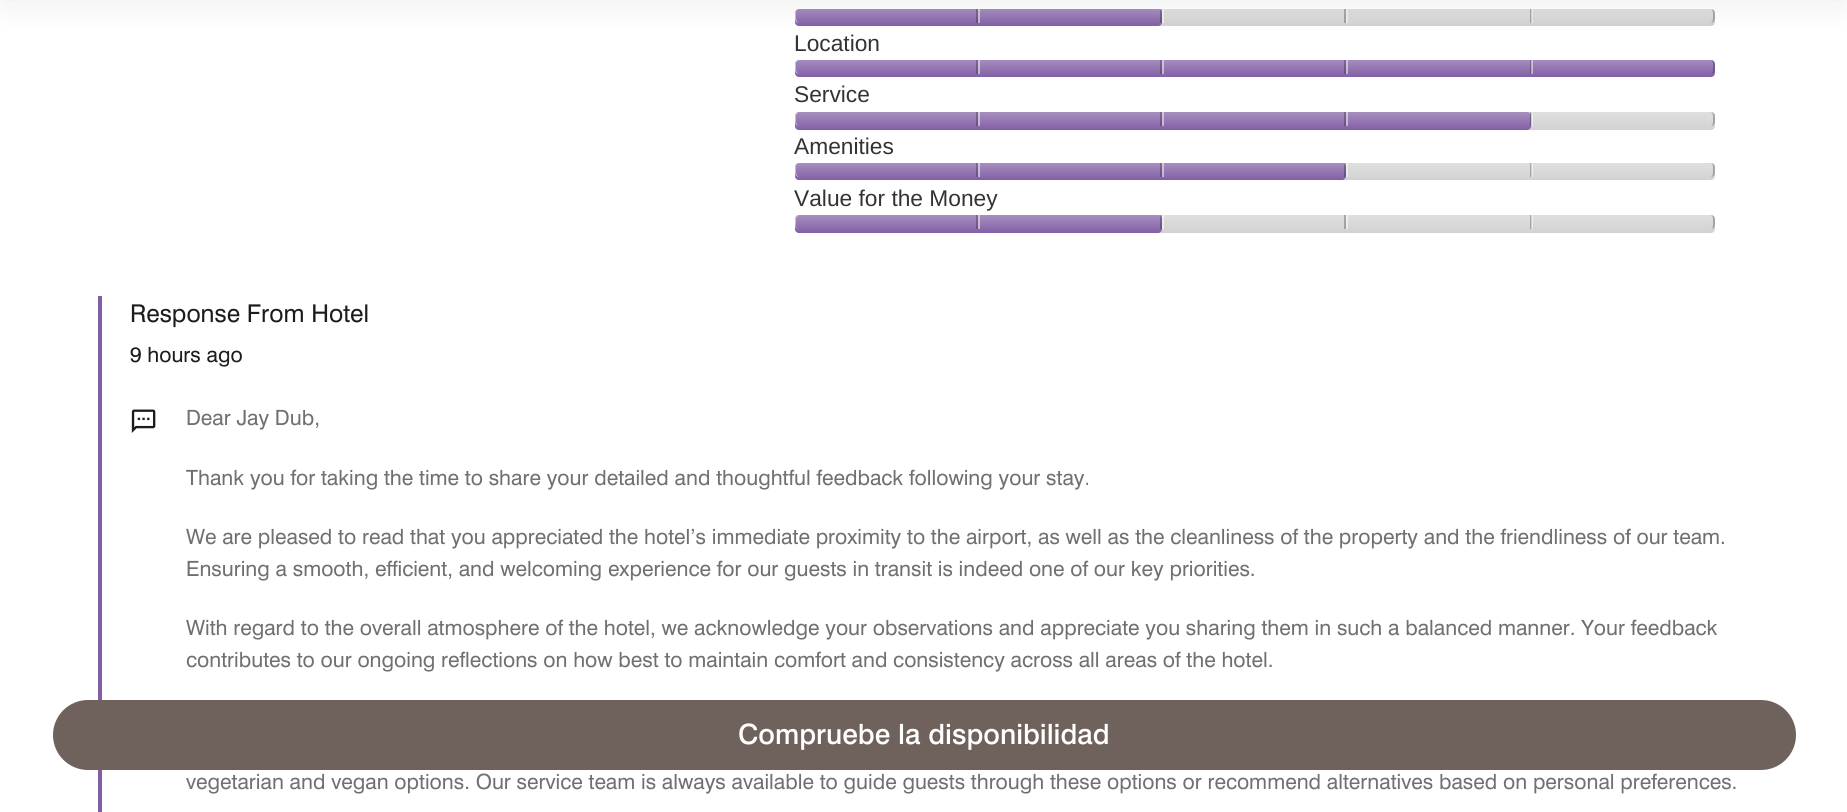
#include <cairo.h>
#include <math.h>
#include <stddef.h>


static void rgb(cairo_t *cr, int r, int g, int b)
{
	cairo_set_source_rgb(cr, r / 255.0, g / 255.0, b / 255.0);
}

static void face(cairo_t *cr, const char *family, double size, int italic, int bold)
{
	cairo_select_font_face(cr, family, italic ? CAIRO_FONT_SLANT_ITALIC : CAIRO_FONT_SLANT_NORMAL,
		bold ? CAIRO_FONT_WEIGHT_BOLD : CAIRO_FONT_WEIGHT_NORMAL);
	cairo_set_font_size(cr, size);
}

static void label(cairo_t *cr, double x, double y, const char *s)
{
	cairo_move_to(cr, x, y);
	cairo_show_text(cr, s);
}

static void rect(cairo_t *cr, double x, double y, double w, double h)
{
	cairo_rectangle(cr, x, y, w, h);
	cairo_fill(cr);
}

static void rrect(cairo_t *cr, double x, double y, double w, double h, double r)
{
	cairo_new_sub_path(cr);
	cairo_arc(cr, x + w - r, y + h - r, r, 0, M_PI / 2);
	cairo_arc(cr, x + r, y + h - r, r, M_PI / 2, M_PI);
	cairo_arc(cr, x + r, y + r, r, M_PI, 1.5 * M_PI);
	cairo_arc(cr, x + w - r, y + r, r, 1.5 * M_PI, 2 * M_PI);
	cairo_close_path(cr);
}

static void soft_shadow(cairo_t *cr, double x, double y, double w, double h, double r, double blur, double alpha)
{
	cairo_push_group_with_content(cr, CAIRO_CONTENT_ALPHA);
	cairo_set_operator(cr, CAIRO_OPERATOR_SOURCE);
	for (int i = 15; i >= -15 && fmin(w, h) + blur * i / 3 > 0; i -= 2) {
		double e = blur * i / 6;
		cairo_set_source_rgba(cr, 0, 0, 0, alpha * erfc((i - 1) / 8.5) / 2);
		rrect(cr, x - e, y - e, w + 2 * e, h + 2 * e, fmax(0, fmin(r + e + blur * .6, fmin(w, h) / 2 + e)));
		cairo_fill(cr);
	}
	cairo_pattern_t *soft = cairo_pop_group(cr);
	cairo_mask(cr, soft);
	cairo_pattern_destroy(soft);
}

static void image(cairo_t *cr, const char *path, double x, double y, double w, double h)
{
	cairo_surface_t *image = cairo_image_surface_create_from_png(path);
	cairo_save(cr);
	cairo_set_source_surface(cr, image, x, y);
	cairo_rectangle(cr, x, y, w, h);
	cairo_fill(cr);
	cairo_restore(cr);
	cairo_surface_destroy(image);
}

static void draw(cairo_t *cr) {
	cairo_pattern_t *gradient;
	rgb(cr, 255, 255, 255);
	cairo_paint(cr);
	rgb(cr, 210, 210, 210);
	rrect(cr, 795, 9, 920, 17, 4);
	cairo_fill(cr);
	gradient = cairo_pattern_create_linear(1255, 9, 1255, 26);
	cairo_pattern_add_color_stop_rgba(gradient, 0, 1, 1, 1, 0.3);
	cairo_pattern_add_color_stop_rgba(gradient, 1, 1, 1, 1, 0);
	cairo_set_source(cr, gradient);
	cairo_pattern_destroy(gradient);
	rrect(cr, 795, 9, 920, 17, 4);
	cairo_fill(cr);
	rgb(cr, 130, 95, 165);
	rrect(cr, 795, 9, 367, 17, 4);
	cairo_fill(cr);
	gradient = cairo_pattern_create_linear(978, 9, 978, 26);
	cairo_pattern_add_color_stop_rgba(gradient, 0, 1, 1, 1, 0.3);
	cairo_pattern_add_color_stop_rgba(gradient, 1, 1, 1, 1, 0);
	cairo_set_source(cr, gradient);
	cairo_pattern_destroy(gradient);
	rrect(cr, 795, 9, 367, 17, 4);
	cairo_fill(cr);
	cairo_set_source_rgba(cr, 0, 0, 0, 0.25);
	rect(cr, 976, 9, 2, 14);
	cairo_set_source_rgba(cr, 1, 1, 1, 0.5);
	cairo_new_path(cr);
	cairo_move_to(cr, 799, 9);
	cairo_curve_to(cr, 795, 9, 795, 13, 795, 16);
	cairo_curve_to(cr, 795, 20, 795, 23, 800, 23);
	cairo_curve_to(cr, 796, 23, 796, 18.5, 796, 15.5);
	cairo_curve_to(cr, 796, 12, 795.5, 9, 800, 9);
	cairo_close_path(cr);
	cairo_fill(cr);
	cairo_set_source_rgba(cr, 0, 0, 0, 0.25);
	rect(cr, 1160, 9, 2, 14);
	cairo_set_source_rgba(cr, 1, 1, 1, 0.5);
	rect(cr, 978, 9, 2, 14);
	cairo_set_source_rgba(cr, 0, 0, 0, 0.25);
	rect(cr, 1344, 9, 2, 14);
	cairo_set_source_rgba(cr, 1, 1, 1, 0.5);
	rect(cr, 1162, 9, 2, 14);
	cairo_set_source_rgba(cr, 0, 0, 0, 0.25);
	rect(cr, 1530, 9, 2, 14);
	cairo_set_source_rgba(cr, 1, 1, 1, 0.5);
	rect(cr, 1346, 9, 2, 14);
	cairo_set_source_rgba(cr, 0, 0, 0, 0.25);
	cairo_new_path(cr);
	cairo_move_to(cr, 1710, 23);
	cairo_curve_to(cr, 1715, 23, 1715, 20, 1715, 16);
	cairo_curve_to(cr, 1715, 12, 1715, 9, 1710, 9);
	cairo_curve_to(cr, 1713.5, 9, 1713, 13, 1713, 15.5);
	cairo_curve_to(cr, 1713, 18, 1713.5, 23, 1710, 23);
	cairo_close_path(cr);
	cairo_fill(cr);
	cairo_set_source_rgba(cr, 1, 1, 1, 0.5);
	rect(cr, 1531, 9, 2, 14);
	face(cr, "Liberation Sans", 22.75, 0, 0);
	rgb(cr, 51, 51, 51);
	label(cr, 794, 51, "Location");
	rgb(cr, 130, 95, 165);
	rrect(cr, 795, 60, 920, 17, 4);
	cairo_fill(cr);
	gradient = cairo_pattern_create_linear(1255, 59, 1255, 77);
	cairo_pattern_add_color_stop_rgba(gradient, 0, 1, 1, 1, 0.3);
	cairo_pattern_add_color_stop_rgba(gradient, 1, 1, 1, 1, 0);
	cairo_set_source(cr, gradient);
	cairo_pattern_destroy(gradient);
	rrect(cr, 795, 60, 920, 17, 4);
	cairo_fill(cr);
	cairo_set_source_rgba(cr, 0, 0, 0, 0.25);
	rect(cr, 976, 60, 2, 14);
	cairo_set_source_rgba(cr, 1, 1, 1, 0.5);
	cairo_new_path(cr);
	cairo_move_to(cr, 799, 60);
	cairo_curve_to(cr, 795, 60, 795, 64, 795, 67);
	cairo_curve_to(cr, 795, 71, 795, 74, 800, 74);
	cairo_curve_to(cr, 796, 74, 796, 69.5, 796, 66.5);
	cairo_curve_to(cr, 796, 63, 795.5, 60, 800, 60);
	cairo_close_path(cr);
	cairo_fill(cr);
	cairo_set_source_rgba(cr, 0, 0, 0, 0.25);
	rect(cr, 1160, 60, 2, 14);
	cairo_set_source_rgba(cr, 1, 1, 1, 0.5);
	rect(cr, 978, 60, 2, 14);
	cairo_set_source_rgba(cr, 0, 0, 0, 0.25);
	rect(cr, 1344, 60, 2, 14);
	cairo_set_source_rgba(cr, 1, 1, 1, 0.5);
	rect(cr, 1162, 60, 2, 14);
	cairo_set_source_rgba(cr, 0, 0, 0, 0.25);
	rect(cr, 1530, 60, 2, 14);
	cairo_set_source_rgba(cr, 1, 1, 1, 0.5);
	rect(cr, 1346, 60, 2, 14);
	cairo_set_source_rgba(cr, 0, 0, 0, 0.25);
	cairo_new_path(cr);
	cairo_move_to(cr, 1710, 74);
	cairo_curve_to(cr, 1715, 74, 1715, 71, 1715, 67);
	cairo_curve_to(cr, 1715, 63, 1715, 60, 1710, 60);
	cairo_curve_to(cr, 1713.5, 60, 1713, 64, 1713, 66.5);
	cairo_curve_to(cr, 1713, 69, 1713.5, 74, 1710, 74);
	cairo_close_path(cr);
	cairo_fill(cr);
	cairo_set_source_rgba(cr, 1, 1, 1, 0.5);
	rect(cr, 1531, 60, 2, 14);
	rgb(cr, 51, 51, 51);
	label(cr, 794, 102, "Service");
	rgb(cr, 210, 210, 210);
	rrect(cr, 795, 112, 920, 18, 4);
	cairo_fill(cr);
	gradient = cairo_pattern_create_linear(1255, 112, 1255, 130);
	cairo_pattern_add_color_stop_rgba(gradient, 0, 1, 1, 1, 0.3);
	cairo_pattern_add_color_stop_rgba(gradient, 1, 1, 1, 1, 0);
	cairo_set_source(cr, gradient);
	cairo_pattern_destroy(gradient);
	rrect(cr, 795, 112, 920, 18, 4);
	cairo_fill(cr);
	rgb(cr, 130, 95, 165);
	rrect(cr, 795, 112, 736, 18, 4);
	cairo_fill(cr);
	gradient = cairo_pattern_create_linear(1163, 112, 1163, 130);
	cairo_pattern_add_color_stop_rgba(gradient, 0, 1, 1, 1, 0.3);
	cairo_pattern_add_color_stop_rgba(gradient, 1, 1, 1, 1, 0);
	cairo_set_source(cr, gradient);
	cairo_pattern_destroy(gradient);
	rrect(cr, 795, 112, 736, 18, 4);
	cairo_fill(cr);
	cairo_set_source_rgba(cr, 0, 0, 0, 0.25);
	rect(cr, 976, 112, 2, 14);
	cairo_set_source_rgba(cr, 1, 1, 1, 0.5);
	cairo_new_path(cr);
	cairo_move_to(cr, 799, 112);
	cairo_curve_to(cr, 795, 112, 795, 116, 795, 119);
	cairo_curve_to(cr, 795, 123, 795, 126, 800, 126);
	cairo_curve_to(cr, 796, 126, 796, 122, 796, 119);
	cairo_curve_to(cr, 796, 116, 796, 112, 800, 112);
	cairo_close_path(cr);
	cairo_fill(cr);
	cairo_set_source_rgba(cr, 0, 0, 0, 0.25);
	rect(cr, 1160, 112, 2, 14);
	cairo_set_source_rgba(cr, 1, 1, 1, 0.5);
	rect(cr, 978, 112, 2, 14);
	cairo_set_source_rgba(cr, 0, 0, 0, 0.25);
	rect(cr, 1344, 112, 2, 14);
	cairo_set_source_rgba(cr, 1, 1, 1, 0.5);
	rect(cr, 1162, 112, 2, 14);
	cairo_set_source_rgba(cr, 0, 0, 0, 0.25);
	rect(cr, 1530, 112, 2, 14);
	cairo_set_source_rgba(cr, 1, 1, 1, 0.5);
	rect(cr, 1346, 112, 2, 14);
	cairo_set_source_rgba(cr, 0, 0, 0, 0.25);
	cairo_new_path(cr);
	cairo_move_to(cr, 1710, 126);
	cairo_curve_to(cr, 1715, 126, 1715, 123, 1715, 119);
	cairo_curve_to(cr, 1715, 115, 1715, 112, 1710, 112);
	cairo_curve_to(cr, 1713.5, 112, 1713, 116.5, 1713, 119);
	cairo_curve_to(cr, 1713, 121.5, 1713.5, 126, 1710, 126);
	cairo_close_path(cr);
	cairo_fill(cr);
	cairo_set_source_rgba(cr, 1, 1, 1, 0.5);
	rect(cr, 1531, 112, 2, 14);
	rgb(cr, 51, 51, 51);
	label(cr, 794, 154, "Amenities");
	rgb(cr, 210, 210, 210);
	rrect(cr, 795, 163, 920, 17, 4);
	cairo_fill(cr);
	gradient = cairo_pattern_create_linear(1255, 163, 1255, 180);
	cairo_pattern_add_color_stop_rgba(gradient, 0, 1, 1, 1, 0.3);
	cairo_pattern_add_color_stop_rgba(gradient, 1, 1, 1, 1, 0);
	cairo_set_source(cr, gradient);
	cairo_pattern_destroy(gradient);
	rrect(cr, 795, 163, 920, 17, 4);
	cairo_fill(cr);
	rgb(cr, 130, 95, 165);
	rrect(cr, 795, 163, 551, 17, 4);
	cairo_fill(cr);
	gradient = cairo_pattern_create_linear(1070, 163, 1070, 180);
	cairo_pattern_add_color_stop_rgba(gradient, 0, 1, 1, 1, 0.3);
	cairo_pattern_add_color_stop_rgba(gradient, 1, 1, 1, 1, 0);
	cairo_set_source(cr, gradient);
	cairo_pattern_destroy(gradient);
	rrect(cr, 795, 163, 551, 17, 4);
	cairo_fill(cr);
	cairo_set_source_rgba(cr, 0, 0, 0, 0.25);
	rect(cr, 976, 163, 2, 14);
	cairo_set_source_rgba(cr, 1, 1, 1, 0.5);
	cairo_new_path(cr);
	cairo_move_to(cr, 799, 163);
	cairo_curve_to(cr, 795, 163, 795, 167, 795, 170);
	cairo_curve_to(cr, 795, 174, 795, 177, 800, 177);
	cairo_curve_to(cr, 796, 177, 796, 172.5, 796, 169.5);
	cairo_curve_to(cr, 796, 166, 795.5, 163, 800, 163);
	cairo_close_path(cr);
	cairo_fill(cr);
	cairo_set_source_rgba(cr, 0, 0, 0, 0.25);
	rect(cr, 1160, 163, 2, 14);
	cairo_set_source_rgba(cr, 1, 1, 1, 0.5);
	rect(cr, 978, 163, 2, 14);
	cairo_set_source_rgba(cr, 0, 0, 0, 0.25);
	rect(cr, 1344, 163, 2, 14);
	cairo_set_source_rgba(cr, 1, 1, 1, 0.5);
	rect(cr, 1162, 163, 2, 14);
	cairo_set_source_rgba(cr, 0, 0, 0, 0.25);
	rect(cr, 1530, 163, 2, 14);
	cairo_set_source_rgba(cr, 1, 1, 1, 0.5);
	rect(cr, 1346, 163, 2, 14);
	cairo_set_source_rgba(cr, 0, 0, 0, 0.25);
	cairo_new_path(cr);
	cairo_move_to(cr, 1710, 177);
	cairo_curve_to(cr, 1715, 177, 1715, 174, 1715, 170);
	cairo_curve_to(cr, 1715, 166, 1715, 163, 1710, 163);
	cairo_curve_to(cr, 1713.5, 163, 1713, 167, 1713, 169.5);
	cairo_curve_to(cr, 1713, 172, 1713.5, 177, 1710, 177);
	cairo_close_path(cr);
	cairo_fill(cr);
	cairo_set_source_rgba(cr, 1, 1, 1, 0.5);
	rect(cr, 1531, 163, 2, 14);
	rgb(cr, 51, 51, 51);
	label(cr, 794, 206, "Value for the Money");
	rgb(cr, 210, 210, 210);
	rrect(cr, 795, 215, 920, 18, 4);
	cairo_fill(cr);
	gradient = cairo_pattern_create_linear(1255, 215, 1255, 233);
	cairo_pattern_add_color_stop_rgba(gradient, 0, 1, 1, 1, 0.3);
	cairo_pattern_add_color_stop_rgba(gradient, 1, 1, 1, 1, 0);
	cairo_set_source(cr, gradient);
	cairo_pattern_destroy(gradient);
	rrect(cr, 795, 215, 920, 18, 4);
	cairo_fill(cr);
	rgb(cr, 130, 95, 165);
	rrect(cr, 795, 215, 367, 18, 4);
	cairo_fill(cr);
	gradient = cairo_pattern_create_linear(978, 215, 978, 233);
	cairo_pattern_add_color_stop_rgba(gradient, 0, 1, 1, 1, 0.3);
	cairo_pattern_add_color_stop_rgba(gradient, 1, 1, 1, 1, 0);
	cairo_set_source(cr, gradient);
	cairo_pattern_destroy(gradient);
	rrect(cr, 795, 215, 367, 18, 4);
	cairo_fill(cr);
	cairo_set_source_rgba(cr, 0, 0, 0, 0.25);
	rect(cr, 976, 215, 2, 14);
	cairo_set_source_rgba(cr, 1, 1, 1, 0.5);
	cairo_new_path(cr);
	cairo_move_to(cr, 799, 215);
	cairo_curve_to(cr, 795, 215, 795, 219, 795, 222);
	cairo_curve_to(cr, 795, 226, 795, 229, 800, 229);
	cairo_curve_to(cr, 795.5, 229, 796, 226, 796, 222.5);
	cairo_curve_to(cr, 796, 219.5, 796, 215, 800, 215);
	cairo_close_path(cr);
	cairo_fill(cr);
	cairo_set_source_rgba(cr, 0, 0, 0, 0.25);
	rect(cr, 1160, 215, 2, 14);
	cairo_set_source_rgba(cr, 1, 1, 1, 0.5);
	rect(cr, 978, 215, 2, 14);
	cairo_set_source_rgba(cr, 0, 0, 0, 0.25);
	rect(cr, 1344, 215, 2, 14);
	cairo_set_source_rgba(cr, 1, 1, 1, 0.5);
	rect(cr, 1162, 215, 2, 14);
	cairo_set_source_rgba(cr, 0, 0, 0, 0.25);
	rect(cr, 1530, 215, 2, 14);
	cairo_set_source_rgba(cr, 1, 1, 1, 0.5);
	rect(cr, 1346, 215, 2, 14);
	cairo_set_source_rgba(cr, 0, 0, 0, 0.25);
	cairo_new_path(cr);
	cairo_move_to(cr, 1710, 229);
	cairo_curve_to(cr, 1715, 229, 1715, 226, 1715, 222);
	cairo_curve_to(cr, 1715, 218, 1715, 215, 1710, 215);
	cairo_curve_to(cr, 1713.5, 215, 1713, 220, 1713, 222.5);
	cairo_curve_to(cr, 1713, 225, 1713.5, 229, 1710, 229);
	cairo_close_path(cr);
	cairo_fill(cr);
	cairo_set_source_rgba(cr, 1, 1, 1, 0.5);
	rect(cr, 1531, 215, 2, 14);
	rgb(cr, 130, 95, 165);
	rect(cr, 98, 296, 4, 516);
	face(cr, "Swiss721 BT", 24.5, 0, 0);
	rgb(cr, 28, 28, 28);
	label(cr, 130, 322, "Response From Hotel");
	face(cr, "Swiss721 BT", 21, 0, 0);
	label(cr, 130, 362, "9 hours ago");
	image(cr, "image0.png", 131, 409, 25, 24);
	rgb(cr, 112, 112, 112);
	label(cr, 186, 425, "Dear Jay Dub,");
	label(cr, 186, 485, "Thank you for taking the time to share your detailed and thoughtful feedback following your stay.");
	label(cr, 186, 544, "We are pleased to read that you appreciated the hotel’s immediate proximity to the airport, as well as the cleanliness of the property and the friendliness of our team.");
	label(cr, 186, 576, "Ensuring a smooth, efficient, and welcoming experience for our guests in transit is indeed one of our key priorities.");
	label(cr, 186, 635, "With regard to the overall atmosphere of the hotel, we acknowledge your observations and appreciate you sharing them in such a balanced manner. Your feedback");
	label(cr, 186, 667, "contributes to our ongoing reflections on how best to maintain comfort and consistency across all areas of the hotel.");
	label(cr, 186, 789, "vegetarian and vegan options. Our service team is always available to guide guests through these options or recommend alternatives based on personal preferences.");
	rgb(cr, 0, 0, 0);
	soft_shadow(cr, 0, -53, 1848, 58, 0, 17.5, 0.07);
	rgb(cr, 111, 98, 93);
	rrect(cr, 53, 700, 1743, 70, 35);
	cairo_fill(cr);
	face(cr, "Swiss721 BT Medium", 28, 0, 0);
	rgb(cr, 255, 255, 255);
	label(cr, 738, 744, "Compruebe la disponibilidad");
}

int main(void) {
	cairo_surface_t *surface = cairo_image_surface_create(CAIRO_FORMAT_RGB24, 1847, 812);
	cairo_t *cr = cairo_create(surface);
	cairo_font_options_t *options = cairo_font_options_create();
	cairo_font_options_set_hint_metrics(options, CAIRO_HINT_METRICS_OFF);
	cairo_font_options_set_hint_style(options, CAIRO_HINT_STYLE_NONE);
	cairo_set_font_options(cr, options);
	cairo_set_miter_limit(cr, 4);
	draw(cr);
	cairo_surface_write_to_png(surface, "render.png");
	cairo_font_options_destroy(options);
	cairo_destroy(cr);
	cairo_surface_destroy(surface);
	return 0;
}
